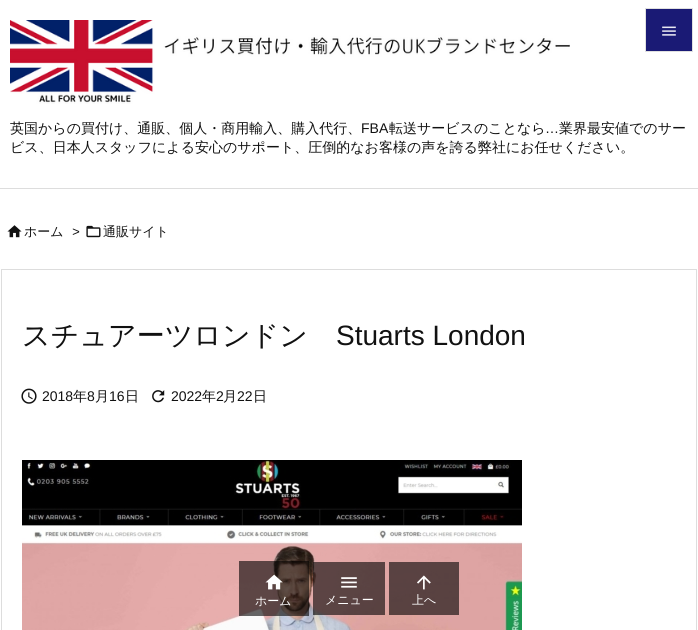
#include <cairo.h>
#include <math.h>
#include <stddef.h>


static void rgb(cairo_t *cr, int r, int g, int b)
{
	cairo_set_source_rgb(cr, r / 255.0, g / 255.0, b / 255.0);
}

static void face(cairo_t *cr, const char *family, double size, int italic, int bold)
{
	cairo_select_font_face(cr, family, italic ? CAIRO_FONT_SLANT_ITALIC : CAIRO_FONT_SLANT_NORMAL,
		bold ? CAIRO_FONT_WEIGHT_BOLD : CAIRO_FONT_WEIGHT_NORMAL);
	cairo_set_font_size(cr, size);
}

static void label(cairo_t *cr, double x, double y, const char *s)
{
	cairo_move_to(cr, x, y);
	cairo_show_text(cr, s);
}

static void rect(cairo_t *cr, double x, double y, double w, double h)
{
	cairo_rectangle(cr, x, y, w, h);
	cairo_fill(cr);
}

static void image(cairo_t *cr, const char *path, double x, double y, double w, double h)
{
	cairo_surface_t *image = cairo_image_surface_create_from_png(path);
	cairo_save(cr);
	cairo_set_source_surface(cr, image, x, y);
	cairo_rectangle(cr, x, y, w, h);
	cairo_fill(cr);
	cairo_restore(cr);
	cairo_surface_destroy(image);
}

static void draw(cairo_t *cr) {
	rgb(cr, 255, 255, 255);
	cairo_paint(cr);
	rgb(cr, 221, 221, 221);
	rect(cr, 0, 188, 698, 1);
	rgb(cr, 26, 26, 117);
	cairo_rectangle(cr, 645.5, 8.5, 47, 43);
	cairo_fill_preserve(cr);
	rgb(cr, 224, 224, 224);
	cairo_set_line_width(cr, 1);
	cairo_stroke(cr);
	image(cr, "image0.png", 662, 26, 14, 10);
	image(cr, "image1.png", 10, 20, 560, 84);
	face(cr, "WenQuanYi Zen Hei Medium", 14, 0, 0);
	rgb(cr, 17, 17, 17);
	label(cr, 10, 133, "英国からの買付け、通販、個人・商用輸入、購入代行、");
	face(cr, "Liberation Sans", 14, 0, 0);
	label(cr, 361, 133, "FBA");
	face(cr, "WenQuanYi Zen Hei Medium", 14, 0, 0);
	label(cr, 389, 133, "転送サービスのことなら");
	face(cr, "Liberation Sans", 14, 0, 0);
	label(cr, 545, 133, "…");
	face(cr, "WenQuanYi Zen Hei Medium", 14, 0, 0);
	label(cr, 559, 133, "業界最安値でのサー");
	label(cr, 10, 152, "ビス、日本人スタッフによる安心のサポート、圧倒的なお客様の声を誇る弊社にお任せください。");
	image(cr, "image2.png", 7, 225, 15, 13);
	face(cr, "WenQuanYi Zen Hei Medium", 13, 0, 0);
	label(cr, 24, 236, "ホーム");
	face(cr, "Liberation Sans", 13, 1, 0);
	label(cr, 72, 236, ">");
	image(cr, "image3.png", 86, 225, 15, 13);
	face(cr, "WenQuanYi Zen Hei Medium", 13, 0, 0);
	label(cr, 103, 236, "通販サイト");
	cairo_rectangle(cr, 1.5, 269.5, 695, 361);
	rgb(cr, 221, 221, 221);
	cairo_stroke(cr);
	face(cr, "WenQuanYi Zen Hei Medium", 28, 0, 0);
	rgb(cr, 17, 17, 17);
	label(cr, 22, 345, "スチュアーツロンドン");
	face(cr, "Liberation Sans", 28, 0, 0);
	label(cr, 336, 345, "Stuarts London");
	image(cr, "image4.png", 21, 388, 16, 16);
	face(cr, "Liberation Sans", 14, 0, 0);
	label(cr, 42, 401, "2018");
	face(cr, "WenQuanYi Zen Hei Medium", 14, 0, 0);
	label(cr, 73, 401, "年");
	face(cr, "Liberation Sans", 14, 0, 0);
	label(cr, 87, 401, "8");
	face(cr, "WenQuanYi Zen Hei Medium", 14, 0, 0);
	label(cr, 95, 401, "月");
	face(cr, "Liberation Sans", 14, 0, 0);
	label(cr, 109, 401, "16");
	face(cr, "WenQuanYi Zen Hei Medium", 14, 0, 0);
	label(cr, 125, 401, "日");
	image(cr, "image5.png", 152, 390, 13, 13);
	face(cr, "Liberation Sans", 14, 0, 0);
	label(cr, 171, 401, "2022");
	face(cr, "WenQuanYi Zen Hei Medium", 14, 0, 0);
	label(cr, 202, 401, "年");
	face(cr, "Liberation Sans", 14, 0, 0);
	label(cr, 216, 401, "2");
	face(cr, "WenQuanYi Zen Hei Medium", 14, 0, 0);
	label(cr, 223, 401, "月");
	face(cr, "Liberation Sans", 14, 0, 0);
	label(cr, 237, 401, "22");
	face(cr, "WenQuanYi Zen Hei Medium", 14, 0, 0);
	label(cr, 253, 401, "日");
	image(cr, "image6.png", 22, 460, 500, 170);
	cairo_set_source_rgba(cr, 0, 0, 0, 0.6);
	rect(cr, 239, 561, 70, 55);
	image(cr, "image7.png", 265, 574, 18, 16);
	face(cr, "WenQuanYi Zen Hei Medium", 12, 0, 0);
	rgb(cr, 255, 255, 255);
	label(cr, 255, 605, "ホーム");
	cairo_set_source_rgba(cr, 0, 0, 0, 0.6);
	rect(cr, 313, 562, 72, 53);
	image(cr, "image8.png", 341, 577, 16, 11);
	rgb(cr, 255, 255, 255);
	label(cr, 325, 604, "メニュー");
	cairo_set_source_rgba(cr, 0, 0, 0, 0.6);
	rect(cr, 389, 562, 70, 53);
	image(cr, "image9.png", 417, 575, 14, 15);
	rgb(cr, 255, 255, 255);
	label(cr, 412, 604, "上へ");
}

int main(void) {
	cairo_surface_t *surface = cairo_image_surface_create(CAIRO_FORMAT_RGB24, 698, 630);
	cairo_t *cr = cairo_create(surface);
	cairo_font_options_t *options = cairo_font_options_create();
	cairo_font_options_set_hint_metrics(options, CAIRO_HINT_METRICS_OFF);
	cairo_font_options_set_hint_style(options, CAIRO_HINT_STYLE_NONE);
	cairo_set_font_options(cr, options);
	cairo_set_miter_limit(cr, 4);
	draw(cr);
	cairo_surface_write_to_png(surface, "render.png");
	cairo_font_options_destroy(options);
	cairo_destroy(cr);
	cairo_surface_destroy(surface);
	return 0;
}
